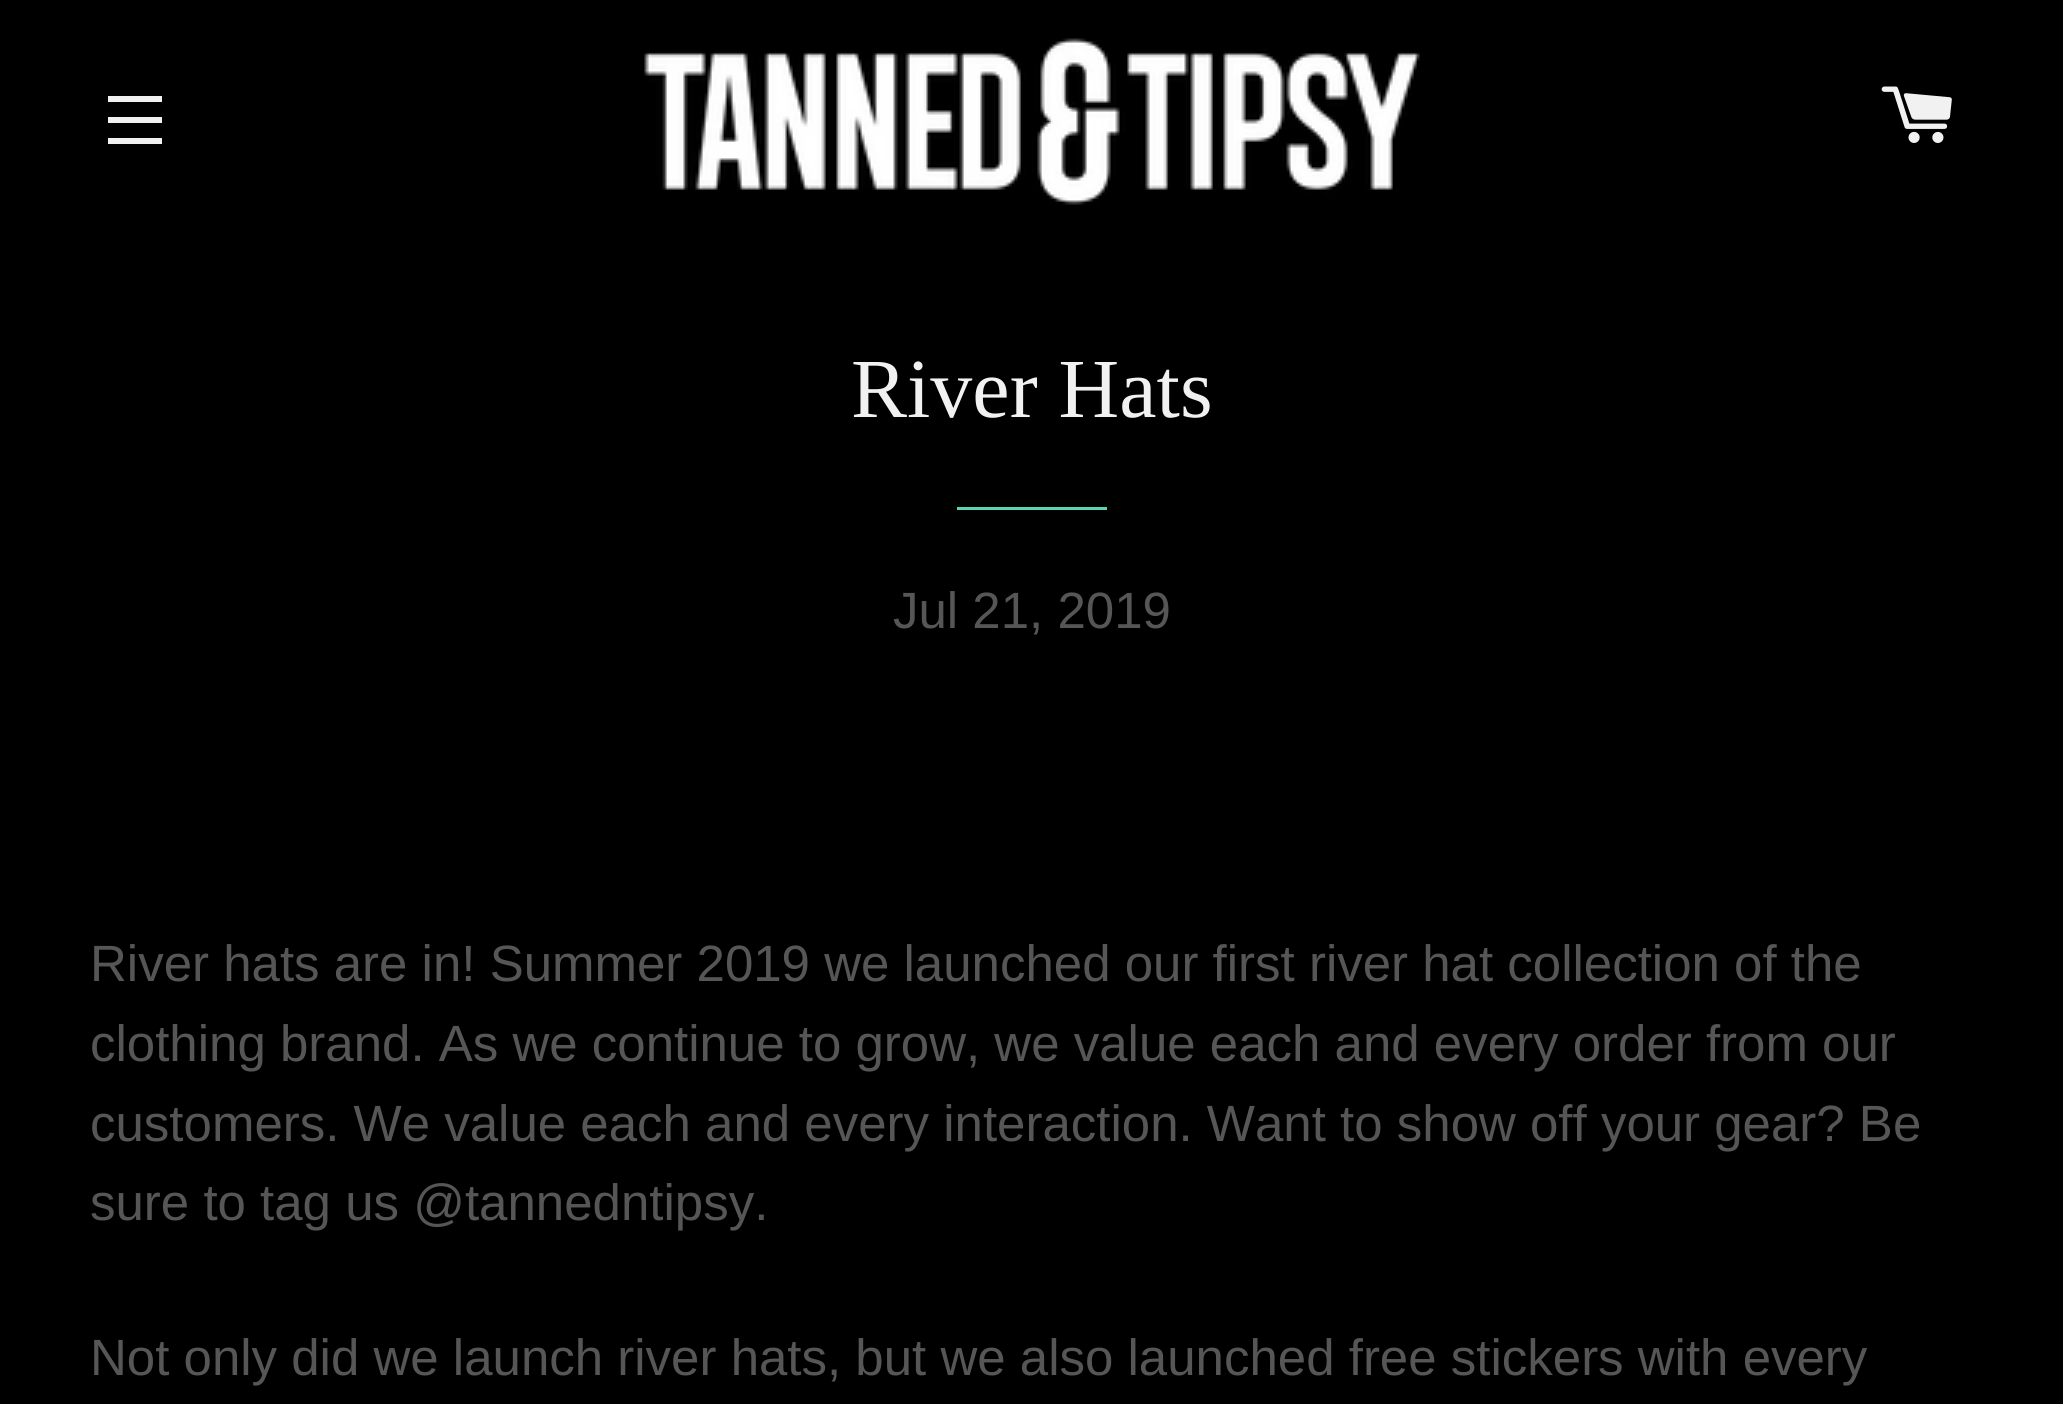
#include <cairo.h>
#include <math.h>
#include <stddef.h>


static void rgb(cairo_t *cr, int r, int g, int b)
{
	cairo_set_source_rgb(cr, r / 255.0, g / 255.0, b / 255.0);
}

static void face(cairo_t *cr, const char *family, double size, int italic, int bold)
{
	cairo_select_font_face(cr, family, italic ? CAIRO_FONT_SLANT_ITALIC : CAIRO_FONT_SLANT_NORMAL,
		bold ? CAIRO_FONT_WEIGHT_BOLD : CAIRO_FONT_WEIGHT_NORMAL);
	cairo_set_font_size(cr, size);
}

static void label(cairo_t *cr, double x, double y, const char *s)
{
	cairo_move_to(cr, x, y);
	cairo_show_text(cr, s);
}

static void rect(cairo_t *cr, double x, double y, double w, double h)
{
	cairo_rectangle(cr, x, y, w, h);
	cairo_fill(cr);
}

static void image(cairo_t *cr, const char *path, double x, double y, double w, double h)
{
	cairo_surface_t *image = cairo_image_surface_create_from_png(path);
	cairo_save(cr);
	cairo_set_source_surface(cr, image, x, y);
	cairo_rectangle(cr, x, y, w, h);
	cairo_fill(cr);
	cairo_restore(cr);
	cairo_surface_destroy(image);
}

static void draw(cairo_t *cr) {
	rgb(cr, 0, 0, 0);
	cairo_paint(cr);
	rgb(cr, 241, 241, 241);
	rect(cr, 108, 96, 54, 6);
	rect(cr, 108, 117, 54, 6);
	rect(cr, 108, 138, 54, 6);
	image(cr, "image0.png", 644, 38, 776, 167);
	image(cr, "image1.png", 1881, 86, 71, 57);
	face(cr, "Liberation Serif", 84, 0, 0);
	label(cr, 851, 417, "River Hats");
	rgb(cr, 93, 210, 180);
	rect(cr, 957, 507, 150, 3);
	face(cr, "Liberation Sans", 51, 0, 0);
	rgb(cr, 86, 86, 86);
	label(cr, 893, 628, "Jul 21, 2019");
	label(cr, 90, 981, "River hats are in! Summer 2019 we launched our first river hat collection of the");
	label(cr, 90, 1061, "clothing brand. As we continue to grow, we value each and every order from our");
	label(cr, 90, 1141, "customers. We value each and every interaction. Want to show off your gear? Be");
	label(cr, 90, 1220, "sure to tag us @tannedntipsy.");
	label(cr, 90, 1375, "Not only did we launch river hats, but we also launched free stickers with every");
}

int main(void) {
	cairo_surface_t *surface = cairo_image_surface_create(CAIRO_FORMAT_RGB24, 2063, 1404);
	cairo_t *cr = cairo_create(surface);
	cairo_font_options_t *options = cairo_font_options_create();
	cairo_font_options_set_hint_metrics(options, CAIRO_HINT_METRICS_OFF);
	cairo_font_options_set_hint_style(options, CAIRO_HINT_STYLE_NONE);
	cairo_set_font_options(cr, options);
	cairo_set_miter_limit(cr, 4);
	draw(cr);
	cairo_surface_write_to_png(surface, "render.png");
	cairo_font_options_destroy(options);
	cairo_destroy(cr);
	cairo_surface_destroy(surface);
	return 0;
}
